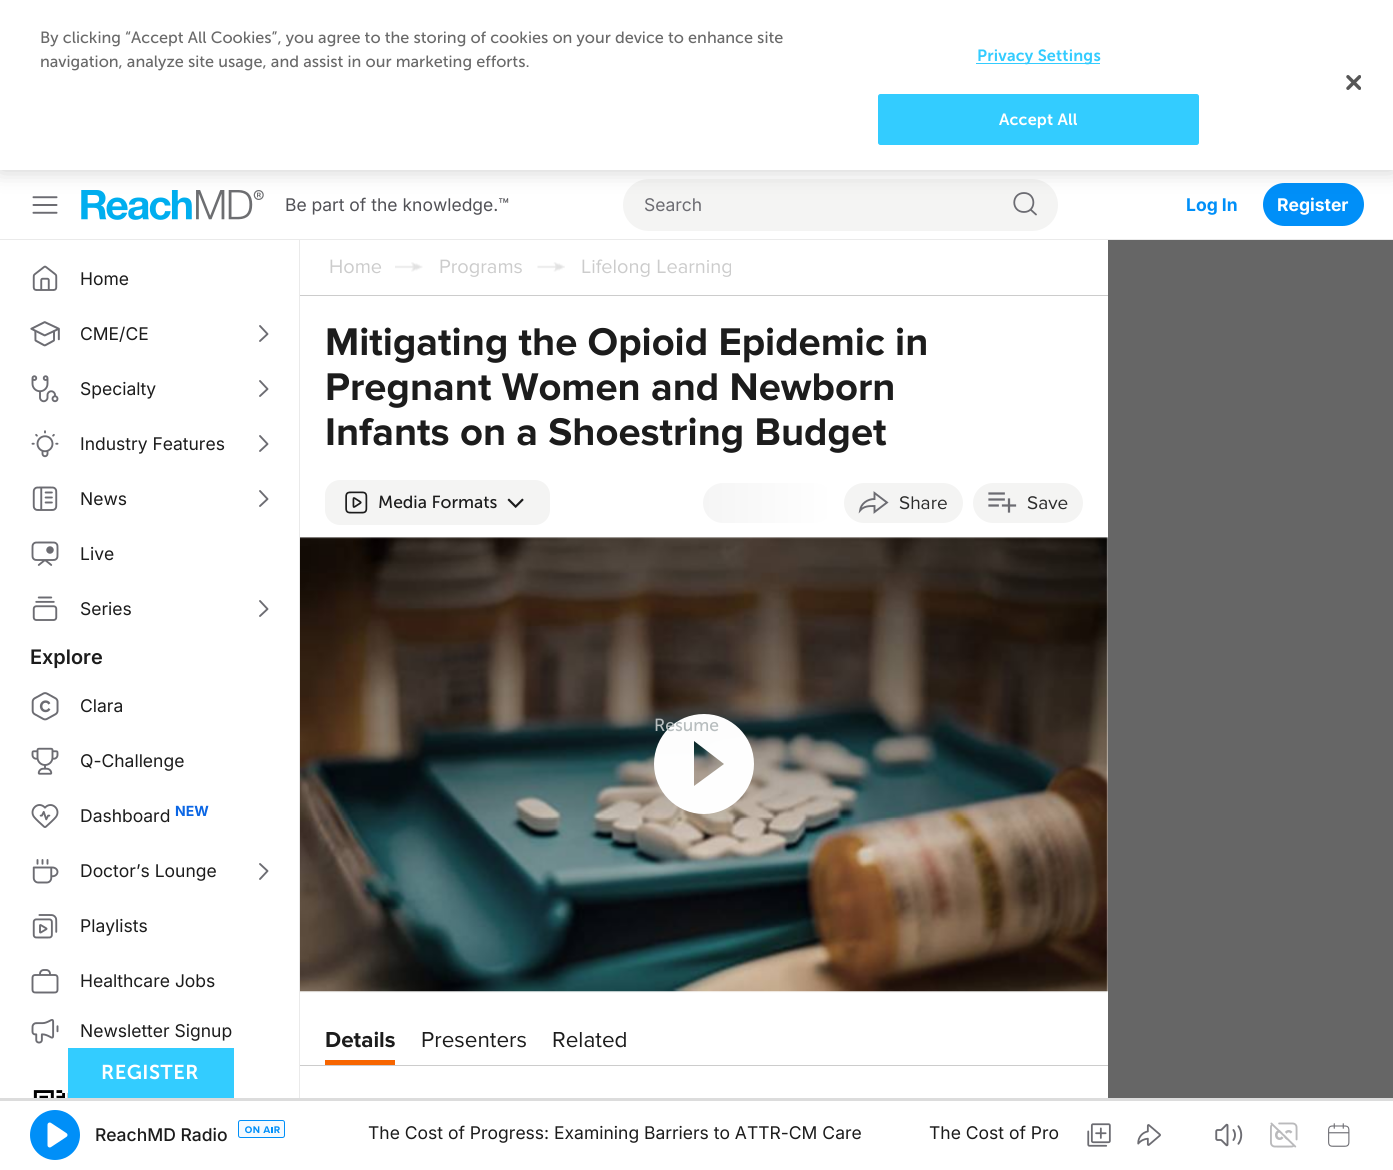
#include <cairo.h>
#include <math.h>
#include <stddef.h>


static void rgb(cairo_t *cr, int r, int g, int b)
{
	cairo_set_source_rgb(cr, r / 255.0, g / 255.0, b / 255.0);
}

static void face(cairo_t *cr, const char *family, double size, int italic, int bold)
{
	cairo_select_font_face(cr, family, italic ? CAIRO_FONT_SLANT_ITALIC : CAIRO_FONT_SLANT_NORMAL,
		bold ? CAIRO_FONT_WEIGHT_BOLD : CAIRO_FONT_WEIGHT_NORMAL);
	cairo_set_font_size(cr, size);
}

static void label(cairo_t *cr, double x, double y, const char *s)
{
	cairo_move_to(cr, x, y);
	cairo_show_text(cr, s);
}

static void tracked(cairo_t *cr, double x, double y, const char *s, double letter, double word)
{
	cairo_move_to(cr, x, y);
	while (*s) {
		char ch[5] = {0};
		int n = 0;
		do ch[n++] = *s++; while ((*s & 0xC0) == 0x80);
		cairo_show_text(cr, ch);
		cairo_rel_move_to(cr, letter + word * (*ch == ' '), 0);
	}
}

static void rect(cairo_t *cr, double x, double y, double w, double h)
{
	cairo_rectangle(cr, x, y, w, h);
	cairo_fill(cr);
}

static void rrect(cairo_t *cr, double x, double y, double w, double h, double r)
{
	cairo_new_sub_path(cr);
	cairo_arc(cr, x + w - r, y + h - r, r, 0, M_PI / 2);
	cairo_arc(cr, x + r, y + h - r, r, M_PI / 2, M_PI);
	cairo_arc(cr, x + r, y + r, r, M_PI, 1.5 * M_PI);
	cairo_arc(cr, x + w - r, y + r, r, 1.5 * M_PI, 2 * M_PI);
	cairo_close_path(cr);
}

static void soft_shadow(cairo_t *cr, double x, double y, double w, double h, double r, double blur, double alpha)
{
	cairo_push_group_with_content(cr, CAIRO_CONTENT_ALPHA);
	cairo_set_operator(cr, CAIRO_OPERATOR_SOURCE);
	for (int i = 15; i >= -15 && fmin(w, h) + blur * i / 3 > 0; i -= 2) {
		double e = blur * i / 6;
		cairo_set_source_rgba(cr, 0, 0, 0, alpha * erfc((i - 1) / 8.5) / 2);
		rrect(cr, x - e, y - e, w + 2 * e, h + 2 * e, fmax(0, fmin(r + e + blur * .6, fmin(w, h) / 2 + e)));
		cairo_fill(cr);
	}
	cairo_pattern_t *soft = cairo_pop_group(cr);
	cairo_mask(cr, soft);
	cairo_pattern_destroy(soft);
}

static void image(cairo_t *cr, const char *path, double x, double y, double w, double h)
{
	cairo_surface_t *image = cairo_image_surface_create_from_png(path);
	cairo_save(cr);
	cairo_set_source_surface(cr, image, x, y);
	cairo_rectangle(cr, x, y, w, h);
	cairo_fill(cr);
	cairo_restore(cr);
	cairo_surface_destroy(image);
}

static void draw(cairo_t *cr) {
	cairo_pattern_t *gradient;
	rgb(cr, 102, 102, 102);
	cairo_paint(cr);
	rgb(cr, 255, 255, 255);
	rect(cr, 0, 170, 1393, 69);
	image(cr, "image1.png", 32, 196, 26, 18);
	image(cr, "image2.png", 81, 190, 183, 30);
	rgb(cr, 244, 244, 243);
	cairo_new_path(cr);
	cairo_move_to(cr, 649, 179);
	cairo_line_to(cr, 998, 179);
	cairo_line_to(cr, 998, 231);
	cairo_line_to(cr, 649, 231);
	cairo_curve_to(cr, 634.5, 231, 623, 219.5, 623, 205);
	cairo_curve_to(cr, 623, 190.5, 634.5, 179, 649, 179);
	cairo_close_path(cr);
	cairo_fill(cr);
	cairo_new_path(cr);
	cairo_move_to(cr, 998, 179);
	cairo_line_to(cr, 1032, 179);
	cairo_curve_to(cr, 1046.5, 179, 1058, 190.5, 1058, 205);
	cairo_curve_to(cr, 1058, 219.5, 1046.5, 231, 1032, 231);
	cairo_line_to(cr, 998, 231);
	cairo_close_path(cr);
	cairo_fill(cr);
	cairo_new_path(cr);
	cairo_move_to(cr, 1024, 212);
	cairo_curve_to(cr, 1036.5, 212, 1036.5, 193, 1024, 193);
	cairo_curve_to(cr, 1011, 193, 1011, 212, 1024, 212);
	cairo_close_path(cr);
	cairo_move_to(cr, 1036, 214.5);
	cairo_line_to(cr, 1030.5, 209.5);
	rgb(cr, 108, 108, 114);
	cairo_set_line_width(cr, 1.8);
	cairo_set_line_cap(cr, CAIRO_LINE_CAP_ROUND);
	cairo_set_line_join(cr, CAIRO_LINE_JOIN_ROUND);
	cairo_stroke(cr);
	rgb(cr, 0, 143, 248);
	rrect(cr, 1263, 183, 101, 43, 21.5);
	cairo_fill(cr);
	rgb(cr, 0, 0, 0);
	soft_shadow(cr, 0, 0, 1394, 170, 0, 11, 0.2);
	rgb(cr, 255, 255, 255);
	rect(cr, 0, 0, 1393, 170);
	face(cr, "Museo Sans", 16.25, 0, 0);
	rgb(cr, 105, 105, 105);
	label(cr, 40, 43, "By clicking “Accept All Cookies”, you agree to the storing of cookies on your device to enhance site");
	label(cr, 40, 67, "navigation, analyze site usage, and assist in our marketing efforts.");
	rgb(cr, 51, 204, 255);
	rect(cr, 976, 63, 124, 1);
	face(cr, "Museo Sans SemiBold", 16.25, 0, 0);
	tracked(cr, 977, 61, "Privacy Settings", 0.2, 0);
	rrect(cr, 878.5, 94.5, 320, 50, 2);
	cairo_fill_preserve(cr);
	cairo_set_line_width(cr, 1);
	cairo_set_line_cap(cr, CAIRO_LINE_CAP_BUTT);
	cairo_set_line_join(cr, CAIRO_LINE_JOIN_MITER);
	cairo_stroke(cr);
	rgb(cr, 255, 255, 255);
	tracked(cr, 999, 125, "Accept All", 0.2, 0);
	image(cr, "image0.png", 1346, 75, 15, 15);
	rgb(cr, 234, 234, 234);
	rect(cr, 299, 239, 1, 859);
	rect(cr, 0, 239, 1393, 1);
	face(cr, "Inter", 17.5, 0, 0);
	rgb(cr, 82, 82, 87);
	label(cr, 285, 211, "Be part of the knowledge.™");
	rgb(cr, 108, 108, 114);
	label(cr, 644, 211, "Search");
	face(cr, "Inter", 17.5, 0, 1);
	rgb(cr, 0, 143, 248);
	label(cr, 1186, 211, "Log In");
	rgb(cr, 255, 255, 255);
	label(cr, 1277, 211, "Register");
	rect(cr, 0, 240, 299, 858);
	image(cr, "image3.png", 32, 265, 26, 26);
	face(cr, "Inter", 17.5, 0, 0);
	rgb(cr, 28, 28, 28);
	label(cr, 80, 285, "Home");
	image(cr, "image4.png", 30, 321, 30, 26);
	label(cr, 80, 340, "CME/CE");
	cairo_new_path(cr);
	cairo_move_to(cr, 260, 341);
	cairo_line_to(cr, 267.5, 334);
	cairo_line_to(cr, 260, 326);
	rgb(cr, 108, 108, 114);
	cairo_set_line_width(cr, 1.9);
	cairo_set_line_cap(cr, CAIRO_LINE_CAP_ROUND);
	cairo_set_line_join(cr, CAIRO_LINE_JOIN_ROUND);
	cairo_stroke(cr);
	image(cr, "image5.png", 31, 375, 28, 28);
	rgb(cr, 28, 28, 28);
	label(cr, 80, 395, "Specialty");
	cairo_new_path(cr);
	cairo_move_to(cr, 260, 396);
	cairo_line_to(cr, 267.5, 389);
	cairo_line_to(cr, 260, 381);
	rgb(cr, 108, 108, 114);
	cairo_stroke(cr);
	image(cr, "image6.png", 31, 430, 28, 28);
	rgb(cr, 28, 28, 28);
	label(cr, 80, 450, "Industry Features");
	cairo_new_path(cr);
	cairo_move_to(cr, 260, 451);
	cairo_line_to(cr, 267.5, 444);
	cairo_line_to(cr, 260, 436);
	rgb(cr, 108, 108, 114);
	cairo_stroke(cr);
	image(cr, "image7.png", 32, 486, 26, 25);
	rgb(cr, 28, 28, 28);
	label(cr, 80, 505, "News");
	cairo_new_path(cr);
	cairo_move_to(cr, 260, 506);
	cairo_line_to(cr, 267.5, 499);
	cairo_line_to(cr, 260, 491);
	rgb(cr, 108, 108, 114);
	cairo_stroke(cr);
	image(cr, "image8.png", 31, 541, 28, 25);
	rgb(cr, 28, 28, 28);
	label(cr, 80, 560, "Live");
	image(cr, "image9.png", 32, 596, 26, 25);
	label(cr, 80, 615, "Series");
	cairo_new_path(cr);
	cairo_move_to(cr, 260, 616);
	cairo_line_to(cr, 267.5, 609);
	cairo_line_to(cr, 260, 601);
	rgb(cr, 108, 108, 114);
	cairo_stroke(cr);
	face(cr, "Inter SemiBold", 20, 0, 0);
	rgb(cr, 28, 28, 28);
	label(cr, 30, 664, "Explore");
	image(cr, "image10.png", 31, 692, 28, 29);
	face(cr, "Inter", 17.5, 0, 0);
	label(cr, 80, 712, "Clara");
	image(cr, "image11.png", 31, 747, 28, 28);
	label(cr, 80, 767, "Q-Challenge");
	image(cr, "image12.png", 31, 804, 28, 24);
	label(cr, 80, 822, "Dashboard");
	face(cr, "Inter", 14, 0, 1);
	rgb(cr, 11, 102, 228);
	label(cr, 175, 816, "NEW");
	image(cr, "image13.png", 32, 859, 27, 25);
	face(cr, "Inter", 17.5, 0, 0);
	rgb(cr, 28, 28, 28);
	label(cr, 80, 877, "Doctor’s Lounge");
	cairo_new_path(cr);
	cairo_move_to(cr, 260, 879);
	cairo_line_to(cr, 267.5, 871);
	cairo_line_to(cr, 260, 864);
	rgb(cr, 108, 108, 114);
	cairo_stroke(cr);
	image(cr, "image14.png", 32, 914, 26, 25);
	rgb(cr, 28, 28, 28);
	label(cr, 80, 932, "Playlists");
	image(cr, "image15.png", 31, 969, 28, 25);
	label(cr, 80, 987, "Healthcare Jobs");
	image(cr, "image16.png", 31, 1019, 28, 25);
	label(cr, 80, 1037, "Newsletter Signup");
	image(cr, "image17.png", 33, 1090, 35, 8);
	rgb(cr, 255, 255, 255);
	rect(cr, 300, 240, 808, 858);
	rgb(cr, 204, 204, 204);
	rect(cr, 300, 295, 808, 1);
	face(cr, "Proxima Nova", 20, 0, 0);
	label(cr, 329, 273, "Home");
	image(cr, "image18.png", 395, 262, 28, 10);
	label(cr, 439, 273, "Programs");
	image(cr, "image19.png", 537, 262, 28, 10);
	label(cr, 581, 273, "Lifelong Learning");
	face(cr, "Proxima Nova", 40, 0, 1);
	rgb(cr, 28, 28, 28);
	label(cr, 325, 355, "Mitigating the Opioid Epidemic in");
	label(cr, 325, 400, "Pregnant Women and Newborn");
	label(cr, 325, 445, "Infants on a Shoestring Budget");
	rgb(cr, 244, 244, 243);
	rrect(cr, 325, 480, 225, 45, 15);
	cairo_fill(cr);
	image(cr, "image20.png", 345, 491, 23, 23);
	face(cr, "Museo Sans", 17.5, 0, 0);
	rgb(cr, 28, 28, 28);
	label(cr, 378, 508, "Media Formats");
	image(cr, "image21.png", 507, 498, 17, 10);
	gradient = cairo_pattern_create_linear(703, 503, 965, 503);
	cairo_pattern_add_color_stop_rgba(gradient, 0, 0.961, 0.961, 0.961, 1);
	cairo_pattern_add_color_stop_rgba(gradient, 0.5, 1, 1, 1, 1);
	cairo_pattern_add_color_stop_rgba(gradient, 1, 0.961, 0.961, 0.961, 1);
	cairo_set_source(cr, gradient);
	cairo_pattern_destroy(gradient);
	rrect(cr, 703, 483, 131, 40, 20);
	cairo_fill(cr);
	rgb(cr, 244, 244, 243);
	rrect(cr, 844, 483, 119, 40, 20);
	cairo_fill(cr);
	cairo_new_path(cr);
	cairo_move_to(cr, 874.5, 507);
	cairo_line_to(cr, 874.5, 506);
	cairo_curve_to(cr, 869, 506, 864, 506, 860, 510.5);
	cairo_curve_to(cr, 861, 503.5, 867.5, 499, 874.5, 499);
	cairo_line_to(cr, 874.5, 493);
	cairo_line_to(cr, 887, 502.5);
	cairo_line_to(cr, 874.5, 512);
	cairo_close_path(cr);
	rgb(cr, 108, 108, 114);
	cairo_set_line_cap(cr, CAIRO_LINE_CAP_BUTT);
	cairo_set_line_join(cr, CAIRO_LINE_JOIN_MITER);
	cairo_stroke(cr);
	face(cr, "Proxima Nova", 19, 0, 0);
	rgb(cr, 44, 44, 44);
	label(cr, 899, 509, "Share");
	rgb(cr, 244, 244, 243);
	rrect(cr, 973, 483, 110, 40, 20);
	cairo_fill(cr);
	image(cr, "image22.png", 988, 492, 29, 21);
	rgb(cr, 44, 44, 44);
	label(cr, 1027, 509, "Save");
	image(cr, "image23.png", 300, 537, 808, 456);
	cairo_set_source_rgba(cr, 1, 1, 1, 0.99);
	cairo_set_fill_rule(cr, CAIRO_FILL_RULE_EVEN_ODD);
	cairo_new_path(cr);
	cairo_move_to(cr, 704, 714);
	cairo_curve_to(cr, 676, 714, 654, 736, 654, 764);
	cairo_curve_to(cr, 654, 791, 676, 814, 704, 814);
	cairo_curve_to(cr, 731, 814, 754, 791, 754, 764);
	cairo_curve_to(cr, 754, 736, 731, 714, 704, 714);
	cairo_close_path(cr);
	cairo_move_to(cr, 694, 786);
	cairo_line_to(cr, 694, 741);
	cairo_line_to(cr, 724, 764);
	cairo_close_path(cr);
	cairo_fill(cr);
	face(cr, "Museo Sans", 17.5, 0, 0);
	rgb(cr, 183, 189, 190);
	label(cr, 654, 731, "Resume");
	rgb(cr, 204, 204, 204);
	rect(cr, 300, 1065, 808, 1);
	face(cr, "Proxima Nova", 22.5, 0, 1);
	rgb(cr, 28, 28, 28);
	label(cr, 325, 1047, "Details");
	rgb(cr, 247, 101, 0);
	rect(cr, 325, 1060, 70, 5);
	face(cr, "Proxima Nova", 22.5, 0, 0);
	rgb(cr, 28, 28, 28);
	label(cr, 421, 1047, "Presenters");
	label(cr, 552, 1047, "Related");
	rgb(cr, 51, 204, 255);
	rect(cr, 68, 1048, 166, 50);
	face(cr, "Museo Sans SemiBold", 20, 0, 0);
	rgb(cr, 255, 255, 255);
	tracked(cr, 101, 1079, "REGISTER", 0.5, 0);
	rect(cr, 0, 1101, 1393, 69);
	rgb(cr, 220, 220, 220);
	rect(cr, 0, 1098, 1393, 3);
	rgb(cr, 0, 143, 248);
	cairo_new_path(cr);
	cairo_arc(cr, 55, 1135, 25, 0, 2 * M_PI);
	cairo_fill(cr);
	image(cr, "image24.png", 47, 1122, 21, 26);
	face(cr, "Inter Medium", 17.5, 0, 0);
	rgb(cr, 28, 28, 28);
	label(cr, 95, 1141, "ReachMD Radio");
	rgb(cr, 244, 250, 255);
	rrect(cr, 238.5, 1120.5, 46, 17, 2);
	cairo_fill_preserve(cr);
	rgb(cr, 0, 143, 248);
	cairo_set_line_width(cr, 1);
	cairo_stroke(cr);
	image(cr, "image25.png", 245, 1126, 35, 8);
	face(cr, "Inter", 17.5, 0, 0);
	rgb(cr, 28, 28, 28);
	label(cr, 368, 1139, "The Cost of Progress: Examining Barriers to ATTR-CM Care");
	label(cr, 929, 1139, "The Cost of Pro");
	image(cr, "image26.png", 1087, 1123, 24, 24);
	image(cr, "image27.png", 1137, 1124, 24, 22);
	image(cr, "image28.png", 1215, 1123, 28, 24);
	image(cr, "image29.png", 1270, 1122, 28, 26);
	image(cr, "image30.png", 1328, 1123, 22, 24);
}

int main(void) {
	cairo_surface_t *surface = cairo_image_surface_create(CAIRO_FORMAT_RGB24, 1393, 1170);
	cairo_t *cr = cairo_create(surface);
	cairo_font_options_t *options = cairo_font_options_create();
	cairo_font_options_set_hint_metrics(options, CAIRO_HINT_METRICS_OFF);
	cairo_font_options_set_hint_style(options, CAIRO_HINT_STYLE_NONE);
	cairo_set_font_options(cr, options);
	cairo_set_miter_limit(cr, 4);
	draw(cr);
	cairo_surface_write_to_png(surface, "render.png");
	cairo_font_options_destroy(options);
	cairo_destroy(cr);
	cairo_surface_destroy(surface);
	return 0;
}
